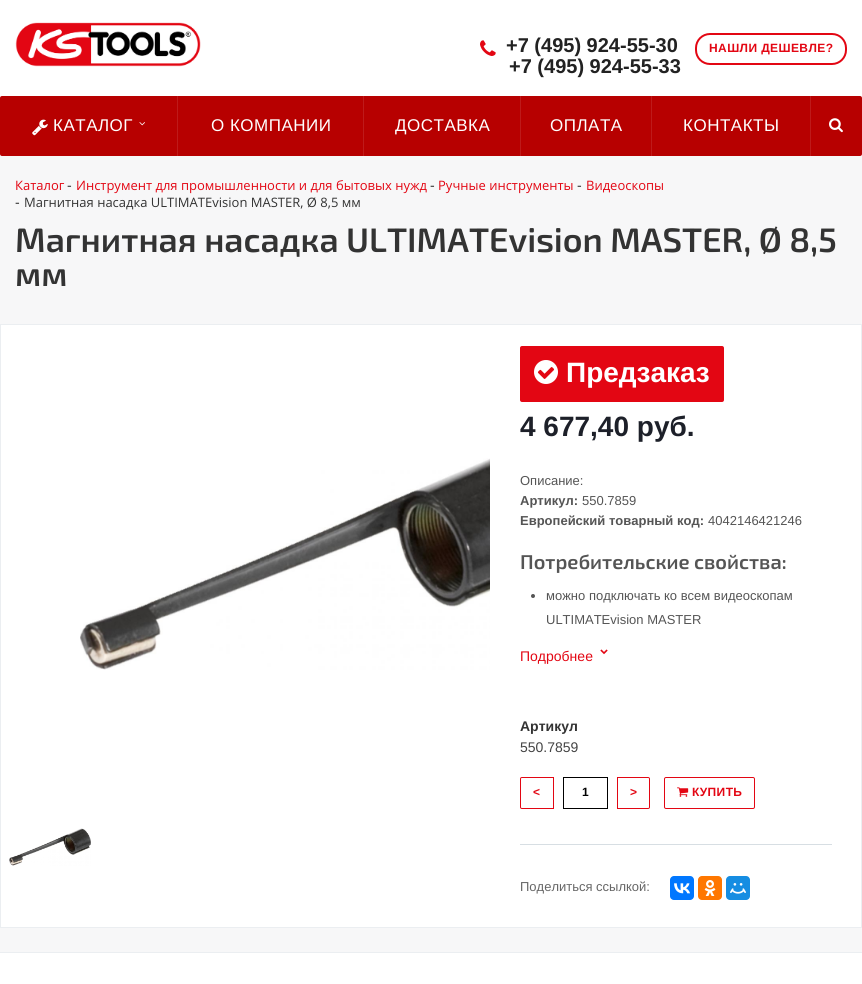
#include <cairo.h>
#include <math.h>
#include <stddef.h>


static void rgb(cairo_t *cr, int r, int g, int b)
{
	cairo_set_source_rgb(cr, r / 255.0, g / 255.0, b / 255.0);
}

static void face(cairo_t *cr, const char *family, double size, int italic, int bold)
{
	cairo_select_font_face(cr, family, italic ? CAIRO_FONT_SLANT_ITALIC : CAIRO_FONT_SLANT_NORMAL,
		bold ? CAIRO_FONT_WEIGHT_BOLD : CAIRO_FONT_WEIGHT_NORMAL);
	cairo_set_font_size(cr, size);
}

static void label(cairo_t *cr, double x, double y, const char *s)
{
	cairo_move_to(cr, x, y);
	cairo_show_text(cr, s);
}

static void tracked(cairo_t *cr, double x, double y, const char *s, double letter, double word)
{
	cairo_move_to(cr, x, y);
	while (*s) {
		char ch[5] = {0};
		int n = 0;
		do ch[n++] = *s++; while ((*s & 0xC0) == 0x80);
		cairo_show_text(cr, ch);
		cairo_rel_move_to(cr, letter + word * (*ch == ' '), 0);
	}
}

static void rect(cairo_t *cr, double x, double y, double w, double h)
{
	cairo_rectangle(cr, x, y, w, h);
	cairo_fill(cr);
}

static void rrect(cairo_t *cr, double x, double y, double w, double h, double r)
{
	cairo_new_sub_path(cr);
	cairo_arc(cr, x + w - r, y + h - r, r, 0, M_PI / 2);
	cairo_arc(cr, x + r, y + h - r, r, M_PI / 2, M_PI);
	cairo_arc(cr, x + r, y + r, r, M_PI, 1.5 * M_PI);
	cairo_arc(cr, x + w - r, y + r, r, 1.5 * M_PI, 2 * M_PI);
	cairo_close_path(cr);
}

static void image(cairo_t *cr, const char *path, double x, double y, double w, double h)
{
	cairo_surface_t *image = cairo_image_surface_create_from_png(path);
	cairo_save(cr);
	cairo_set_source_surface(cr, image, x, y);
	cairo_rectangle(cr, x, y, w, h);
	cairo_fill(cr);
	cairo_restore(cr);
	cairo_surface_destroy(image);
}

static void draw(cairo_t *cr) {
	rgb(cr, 255, 255, 255);
	cairo_paint(cr);
	image(cr, "image0.png", 15, 22, 186, 45);
	image(cr, "image1.png", 480, 40, 16, 16);
	face(cr, "Liberation Sans", 20, 0, 1);
	rgb(cr, 34, 34, 34);
	label(cr, 506, 52, "+7 (495) 924-55-30");
	label(cr, 509, 73, "+7 (495) 924-55-33");
	rrect(cr, 696, 34, 150, 30, 14);
	rgb(cr, 227, 6, 19);
	cairo_stroke(cr);
	face(cr, "Liberation Sans", 12, 0, 1);
	tracked(cr, 709, 52, "НАШЛИ ДЕШЕВЛЕ?", 0.4, 0);
	rgb(cr, 247, 247, 248);
	rect(cr, 0, 154, 862, 798);
	rgb(cr, 183, 0, 0);
	rrect(cr, 0, 96, 862, 60, 2);
	cairo_fill(cr);
	rgb(cr, 190, 26, 26);
	rect(cr, 177, 96, 1, 60);
	image(cr, "image2.png", 32, 119, 16, 17);
	face(cr, "Liberation Sans", 17, 0, 0);
	rgb(cr, 255, 255, 255);
	tracked(cr, 53, 131, "КАТАЛОГ", 0.5, 0);
	image(cr, "image3.png", 139, 122, 6, 4);
	rgb(cr, 190, 26, 26);
	rect(cr, 363, 96, 1, 60);
	rgb(cr, 255, 255, 255);
	tracked(cr, 211, 131, "О КОМПАНИИ", 0.5, 0);
	rgb(cr, 190, 26, 26);
	rect(cr, 520, 96, 1, 60);
	rgb(cr, 255, 255, 255);
	tracked(cr, 395, 131, "ДОСТАВКА", 0.5, 0);
	rgb(cr, 190, 26, 26);
	rect(cr, 651, 96, 1, 60);
	rgb(cr, 255, 255, 255);
	tracked(cr, 550, 131, "ОПЛАТА", 0.5, 0);
	rgb(cr, 190, 26, 26);
	rect(cr, 810, 96, 1, 60);
	rgb(cr, 255, 255, 255);
	tracked(cr, 683, 131, "КОНТАКТЫ", 0.5, 0);
	image(cr, "image4.png", 829, 118, 14, 15);
	face(cr, "Open Sans", 13, 0, 0);
	rgb(cr, 227, 6, 19);
	label(cr, 15, 190, "Каталог");
	face(cr, "Liberation Sans", 14, 0, 0);
	rgb(cr, 51, 51, 51);
	label(cr, 67, 190, "-");
	face(cr, "Open Sans", 13, 0, 0);
	rgb(cr, 227, 6, 19);
	label(cr, 76, 190, "Инструмент для промышленности и для бытовых нужд");
	face(cr, "Liberation Sans", 14, 0, 0);
	rgb(cr, 51, 51, 51);
	label(cr, 430, 190, "-");
	face(cr, "Open Sans", 13, 0, 0);
	rgb(cr, 227, 6, 19);
	label(cr, 438, 190, "Ручные инструменты");
	face(cr, "Liberation Sans", 14, 0, 0);
	rgb(cr, 51, 51, 51);
	label(cr, 577, 190, "-");
	face(cr, "Open Sans", 13, 0, 0);
	rgb(cr, 227, 6, 19);
	label(cr, 586, 190, "Видеоскопы");
	face(cr, "Liberation Sans", 14, 0, 0);
	rgb(cr, 51, 51, 51);
	label(cr, 15, 207, "-");
	face(cr, "Open Sans", 13, 0, 0);
	label(cr, 24, 207, "Магнитная насадка ULTIMATEvision MASTER, Ø 8,5 мм");
	face(cr, "Exo 2 SemiBold", 34, 0, 0);
	label(cr, 15, 252, "Магнитная насадка ULTIMATEvision MASTER, Ø 8,5");
	label(cr, 15, 286, "мм");
	rgb(cr, 235, 238, 241);
	rect(cr, 0, 952, 862, 1);
	rgb(cr, 255, 255, 255);
	cairo_rectangle(cr, 0.5, 324.5, 861, 603);
	cairo_fill_preserve(cr);
	rgb(cr, 235, 238, 241);
	cairo_set_line_width(cr, 1);
	cairo_stroke(cr);
	image(cr, "image5.png", 80, 458, 410, 212);
	image(cr, "image6.png", 9, 828, 82, 38);
	rgb(cr, 227, 6, 19);
	rrect(cr, 520, 346, 204, 56, 2);
	cairo_fill(cr);
	image(cr, "image7.png", 534, 360, 24, 24);
	face(cr, "Liberation Sans", 28, 0, 1);
	rgb(cr, 255, 255, 255);
	label(cr, 566, 382, "Предзаказ");
	rgb(cr, 29, 32, 41);
	label(cr, 520, 436, "4 677,40 руб.");
	face(cr, "Liberation Sans", 13, 0, 0);
	rgb(cr, 85, 85, 85);
	label(cr, 520, 485, "Описание:");
	face(cr, "Liberation Sans", 13, 0, 1);
	label(cr, 520, 505, "Артикул:");
	face(cr, "Liberation Sans", 13, 0, 0);
	label(cr, 582, 505, "550.7859");
	face(cr, "Liberation Sans", 13, 0, 1);
	label(cr, 520, 525, "Европейский товарный код:");
	face(cr, "Liberation Sans", 13, 0, 0);
	label(cr, 708, 525, "4042146421246");
	face(cr, "Exo 2 SemiBold", 20, 0, 0);
	label(cr, 520, 569, "Потребительские свойства:");
	cairo_new_path(cr);
	cairo_arc(cr, 533, 596, 2, 0, 2 * M_PI);
	cairo_fill(cr);
	face(cr, "Liberation Sans", 13, 0, 0);
	label(cr, 546, 600, "можно подключать ко всем видеоскопам");
	label(cr, 546, 624, "ULTIMATEvision MASTER");
	face(cr, "Liberation Sans", 14, 0, 0);
	rgb(cr, 227, 6, 19);
	label(cr, 520, 661, "Подробнее");
	image(cr, "image8.png", 600, 649, 8, 6);
	face(cr, "Liberation Sans", 14, 0, 1);
	rgb(cr, 51, 51, 51);
	label(cr, 520, 731, "Артикул");
	face(cr, "Liberation Sans", 14, 0, 0);
	rgb(cr, 68, 68, 68);
	label(cr, 520, 752, "550.7859");
	cairo_new_path(cr);
	cairo_move_to(cr, 522, 777.5);
	cairo_line_to(cr, 553.5, 777.5);
	cairo_line_to(cr, 553.5, 808.5);
	cairo_line_to(cr, 522, 808.5);
	cairo_curve_to(cr, 521, 808.5, 520.5, 808, 520.5, 807);
	cairo_line_to(cr, 520.5, 779);
	cairo_curve_to(cr, 520.5, 778, 521, 777.5, 522, 777.5);
	cairo_close_path(cr);
	rgb(cr, 227, 6, 19);
	cairo_stroke(cr);
	face(cr, "Liberation Sans", 12, 0, 1);
	tracked(cr, 533, 796, "<", 0.4, 0);
	cairo_rectangle(cr, 563.5, 777.5, 44, 31);
	rgb(cr, 0, 0, 0);
	cairo_stroke(cr);
	tracked(cr, 582, 796, "1", 0.4, 0);
	cairo_new_path(cr);
	cairo_move_to(cr, 617.5, 777.5);
	cairo_line_to(cr, 648, 777.5);
	cairo_curve_to(cr, 649, 777.5, 649.5, 778, 649.5, 779);
	cairo_line_to(cr, 649.5, 807);
	cairo_curve_to(cr, 649.5, 808, 649, 808.5, 648, 808.5);
	cairo_line_to(cr, 617.5, 808.5);
	cairo_close_path(cr);
	rgb(cr, 227, 6, 19);
	cairo_stroke(cr);
	tracked(cr, 630, 796, ">", 0.4, 0);
	rrect(cr, 664.5, 777.5, 90, 31, 1.5);
	cairo_stroke(cr);
	image(cr, "image9.png", 677, 787, 12, 10);
	tracked(cr, 692, 796, "КУПИТЬ", 0.4, 0);
	rgb(cr, 215, 222, 227);
	rect(cr, 520, 844, 312, 1);
	face(cr, "Liberation Sans", 13, 0, 0);
	rgb(cr, 102, 102, 102);
	label(cr, 520, 891, "Поделиться ссылкой:");
	rgb(cr, 0, 119, 255);
	rrect(cr, 670, 876, 24, 24, 4);
	cairo_fill(cr);
	image(cr, "image10.png", 674, 883, 16, 11);
	rgb(cr, 255, 119, 0);
	rrect(cr, 698, 876, 24, 24, 4);
	cairo_fill(cr);
	image(cr, "image11.png", 704, 880, 12, 16);
	rgb(cr, 22, 141, 226);
	rrect(cr, 726, 876, 24, 24, 4);
	cairo_fill(cr);
	image(cr, "image12.png", 730, 883, 16, 11);
}

int main(void) {
	cairo_surface_t *surface = cairo_image_surface_create(CAIRO_FORMAT_RGB24, 862, 984);
	cairo_t *cr = cairo_create(surface);
	cairo_font_options_t *options = cairo_font_options_create();
	cairo_font_options_set_hint_metrics(options, CAIRO_HINT_METRICS_OFF);
	cairo_font_options_set_hint_style(options, CAIRO_HINT_STYLE_NONE);
	cairo_set_font_options(cr, options);
	cairo_set_miter_limit(cr, 4);
	draw(cr);
	cairo_surface_write_to_png(surface, "render.png");
	cairo_font_options_destroy(options);
	cairo_destroy(cr);
	cairo_surface_destroy(surface);
	return 0;
}
